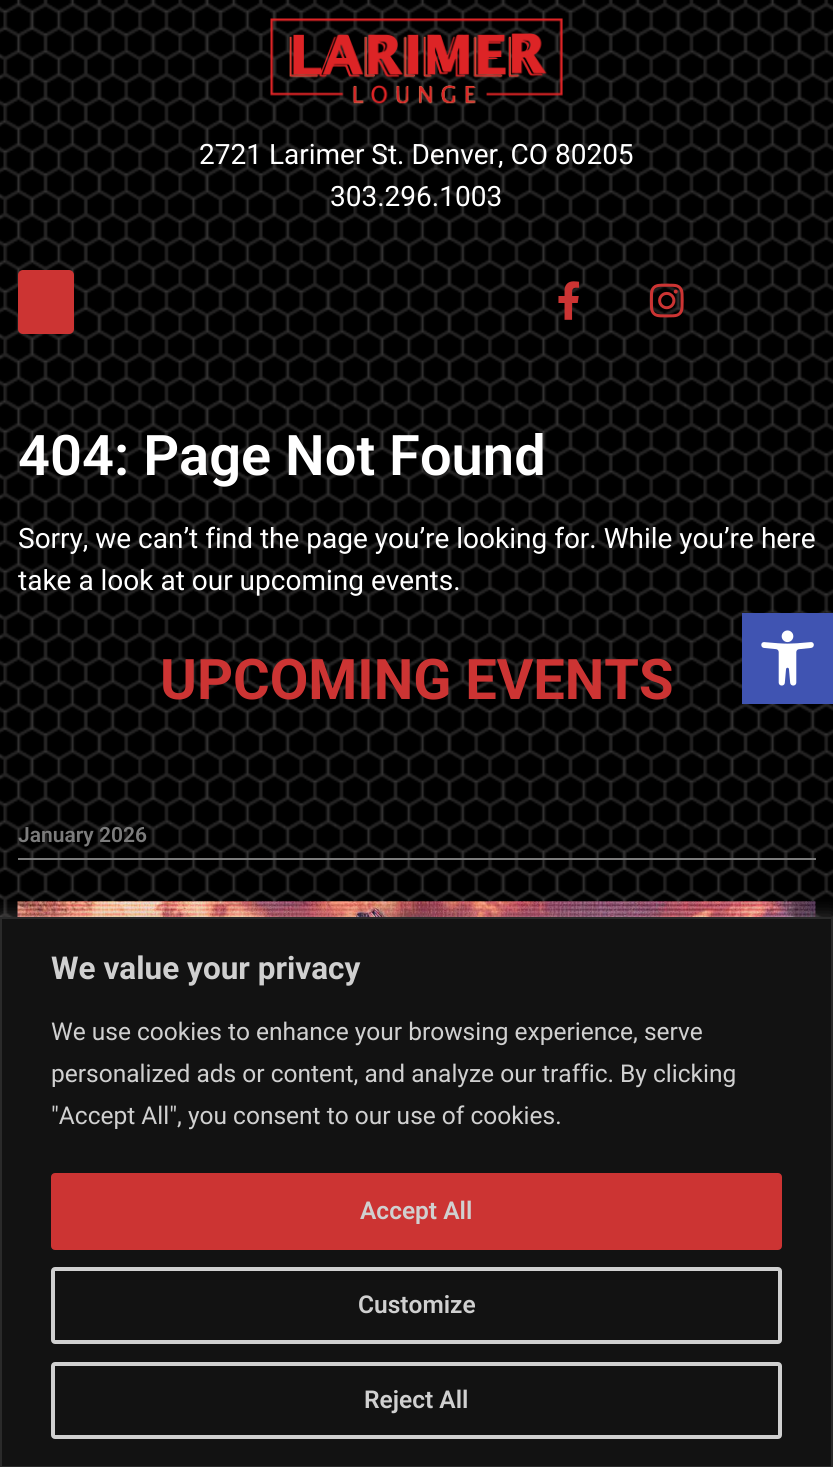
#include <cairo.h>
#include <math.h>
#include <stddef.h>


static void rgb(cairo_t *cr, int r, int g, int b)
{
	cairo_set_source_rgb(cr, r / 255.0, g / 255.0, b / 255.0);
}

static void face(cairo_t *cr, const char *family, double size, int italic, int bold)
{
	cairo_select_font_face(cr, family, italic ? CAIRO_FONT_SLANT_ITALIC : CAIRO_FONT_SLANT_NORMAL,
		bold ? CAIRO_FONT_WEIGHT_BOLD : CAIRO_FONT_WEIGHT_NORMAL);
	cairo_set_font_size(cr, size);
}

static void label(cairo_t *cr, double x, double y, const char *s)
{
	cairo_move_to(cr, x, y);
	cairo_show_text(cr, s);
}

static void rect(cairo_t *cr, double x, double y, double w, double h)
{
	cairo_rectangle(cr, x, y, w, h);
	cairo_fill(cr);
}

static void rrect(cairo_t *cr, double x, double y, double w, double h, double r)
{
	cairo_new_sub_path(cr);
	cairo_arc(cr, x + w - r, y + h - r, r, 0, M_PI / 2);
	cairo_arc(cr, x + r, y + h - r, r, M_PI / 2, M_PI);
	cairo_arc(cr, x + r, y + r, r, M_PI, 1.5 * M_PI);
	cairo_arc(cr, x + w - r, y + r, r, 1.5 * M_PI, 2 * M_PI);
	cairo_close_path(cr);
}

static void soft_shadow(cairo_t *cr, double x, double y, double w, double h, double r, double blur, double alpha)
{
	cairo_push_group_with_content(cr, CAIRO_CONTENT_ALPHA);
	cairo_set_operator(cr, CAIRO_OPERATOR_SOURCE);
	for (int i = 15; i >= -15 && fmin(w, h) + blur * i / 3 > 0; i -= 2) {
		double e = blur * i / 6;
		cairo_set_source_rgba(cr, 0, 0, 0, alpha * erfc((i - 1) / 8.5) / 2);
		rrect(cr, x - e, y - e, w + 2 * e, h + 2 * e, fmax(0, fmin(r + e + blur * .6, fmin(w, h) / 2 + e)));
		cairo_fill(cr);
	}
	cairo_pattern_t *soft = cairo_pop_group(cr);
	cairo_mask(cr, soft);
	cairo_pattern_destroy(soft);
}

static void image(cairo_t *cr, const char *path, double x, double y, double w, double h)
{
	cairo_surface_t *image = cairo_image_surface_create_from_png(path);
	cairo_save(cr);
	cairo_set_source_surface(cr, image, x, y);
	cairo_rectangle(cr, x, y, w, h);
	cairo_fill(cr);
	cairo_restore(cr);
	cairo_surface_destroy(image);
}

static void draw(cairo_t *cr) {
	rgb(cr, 255, 255, 255);
	cairo_paint(cr);
	image(cr, "image0.png", 0, 0, 833, 917);
	image(cr, "image1.png", 270, 18, 293, 86);
	face(cr, "Roboto", 28, 0, 0);
	rgb(cr, 255, 255, 255);
	label(cr, 199, 164, "2721 Larimer St. Denver, CO 80205");
	label(cr, 330, 206, "303.296.1003");
	rgb(cr, 204, 52, 51);
	rrect(cr, 18, 270, 56, 64, 5);
	cairo_fill(cr);
	image(cr, "image2.png", 558, 281, 22, 39);
	image(cr, "image3.png", 649, 283, 35, 35);
	face(cr, "Roboto SemiBold", 56, 0, 0);
	rgb(cr, 255, 255, 255);
	label(cr, 18, 475, "404: Page Not Found");
	face(cr, "Roboto", 28, 0, 0);
	label(cr, 18, 548, "Sorry, we can’t find the page you’re looking for. While you’re here");
	label(cr, 18, 590, "take a look at our upcoming events.");
	face(cr, "Roboto", 56, 0, 1);
	rgb(cr, 204, 52, 51);
	label(cr, 160, 699, "UPCOMING EVENTS");
	rgb(cr, 124, 124, 124);
	rect(cr, 18, 858, 798, 2);
	face(cr, "Roboto SemiBold", 21, 0, 0);
	label(cr, 18, 842, "January 2026");
	image(cr, "image4.png", 17, 901, 799, 16);
	rgb(cr, 64, 84, 178);
	rect(cr, 742, 613, 91, 91);
	image(cr, "image5.png", 761, 630, 53, 56);
	rgb(cr, 172, 171, 171);
	soft_shadow(cr, 0, 915, 833, 552, 0, 9, 0.3);
	rgb(cr, 18, 18, 18);
	cairo_rectangle(cr, 1, 918, 831, 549);
	cairo_fill_preserve(cr);
	rgb(cr, 42, 42, 42);
	cairo_stroke(cr);
	face(cr, "Roboto", 31.5, 0, 1);
	rgb(cr, 208, 208, 208);
	label(cr, 51, 979, "We value your privacy");
	face(cr, "Roboto", 24.5, 0, 0);
	label(cr, 51, 1040, "We use cookies to enhance your browsing experience, serve");
	label(cr, 51, 1082, "personalized ads or content, and analyze our traffic. By clicking");
	label(cr, 51, 1124, "\"Accept All\", you consent to our use of cookies.");
	rgb(cr, 204, 52, 51);
	rrect(cr, 53, 1175, 727, 73, 2);
	cairo_fill_preserve(cr);
	cairo_set_line_width(cr, 4);
	cairo_stroke(cr);
	face(cr, "Roboto SemiBold", 24.5, 0, 0);
	rgb(cr, 208, 208, 208);
	label(cr, 360, 1219, "Accept All");
	rrect(cr, 53, 1269, 727, 73, 2);
	cairo_stroke(cr);
	label(cr, 358, 1313, "Customize");
	rrect(cr, 53, 1364, 727, 73, 2);
	cairo_stroke(cr);
	label(cr, 364, 1408, "Reject All");
}

int main(void) {
	cairo_surface_t *surface = cairo_image_surface_create(CAIRO_FORMAT_RGB24, 833, 1467);
	cairo_t *cr = cairo_create(surface);
	cairo_font_options_t *options = cairo_font_options_create();
	cairo_font_options_set_hint_metrics(options, CAIRO_HINT_METRICS_OFF);
	cairo_font_options_set_hint_style(options, CAIRO_HINT_STYLE_NONE);
	cairo_set_font_options(cr, options);
	cairo_set_miter_limit(cr, 4);
	draw(cr);
	cairo_surface_write_to_png(surface, "render.png");
	cairo_font_options_destroy(options);
	cairo_destroy(cr);
	cairo_surface_destroy(surface);
	return 0;
}
